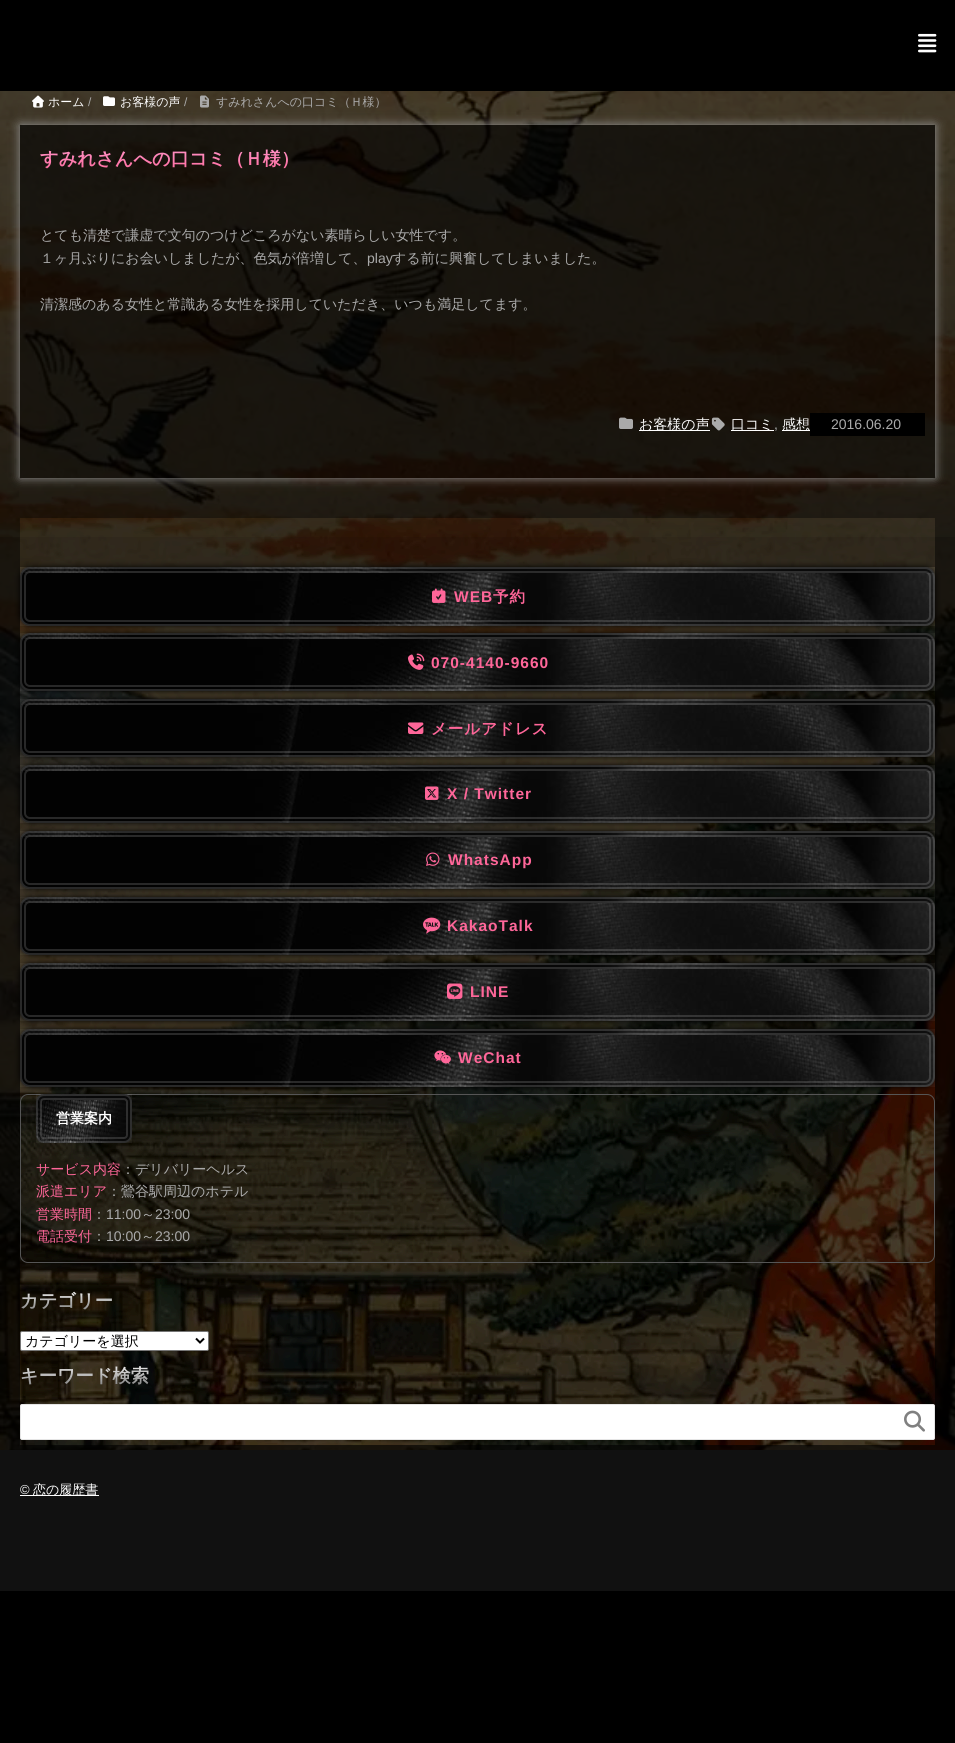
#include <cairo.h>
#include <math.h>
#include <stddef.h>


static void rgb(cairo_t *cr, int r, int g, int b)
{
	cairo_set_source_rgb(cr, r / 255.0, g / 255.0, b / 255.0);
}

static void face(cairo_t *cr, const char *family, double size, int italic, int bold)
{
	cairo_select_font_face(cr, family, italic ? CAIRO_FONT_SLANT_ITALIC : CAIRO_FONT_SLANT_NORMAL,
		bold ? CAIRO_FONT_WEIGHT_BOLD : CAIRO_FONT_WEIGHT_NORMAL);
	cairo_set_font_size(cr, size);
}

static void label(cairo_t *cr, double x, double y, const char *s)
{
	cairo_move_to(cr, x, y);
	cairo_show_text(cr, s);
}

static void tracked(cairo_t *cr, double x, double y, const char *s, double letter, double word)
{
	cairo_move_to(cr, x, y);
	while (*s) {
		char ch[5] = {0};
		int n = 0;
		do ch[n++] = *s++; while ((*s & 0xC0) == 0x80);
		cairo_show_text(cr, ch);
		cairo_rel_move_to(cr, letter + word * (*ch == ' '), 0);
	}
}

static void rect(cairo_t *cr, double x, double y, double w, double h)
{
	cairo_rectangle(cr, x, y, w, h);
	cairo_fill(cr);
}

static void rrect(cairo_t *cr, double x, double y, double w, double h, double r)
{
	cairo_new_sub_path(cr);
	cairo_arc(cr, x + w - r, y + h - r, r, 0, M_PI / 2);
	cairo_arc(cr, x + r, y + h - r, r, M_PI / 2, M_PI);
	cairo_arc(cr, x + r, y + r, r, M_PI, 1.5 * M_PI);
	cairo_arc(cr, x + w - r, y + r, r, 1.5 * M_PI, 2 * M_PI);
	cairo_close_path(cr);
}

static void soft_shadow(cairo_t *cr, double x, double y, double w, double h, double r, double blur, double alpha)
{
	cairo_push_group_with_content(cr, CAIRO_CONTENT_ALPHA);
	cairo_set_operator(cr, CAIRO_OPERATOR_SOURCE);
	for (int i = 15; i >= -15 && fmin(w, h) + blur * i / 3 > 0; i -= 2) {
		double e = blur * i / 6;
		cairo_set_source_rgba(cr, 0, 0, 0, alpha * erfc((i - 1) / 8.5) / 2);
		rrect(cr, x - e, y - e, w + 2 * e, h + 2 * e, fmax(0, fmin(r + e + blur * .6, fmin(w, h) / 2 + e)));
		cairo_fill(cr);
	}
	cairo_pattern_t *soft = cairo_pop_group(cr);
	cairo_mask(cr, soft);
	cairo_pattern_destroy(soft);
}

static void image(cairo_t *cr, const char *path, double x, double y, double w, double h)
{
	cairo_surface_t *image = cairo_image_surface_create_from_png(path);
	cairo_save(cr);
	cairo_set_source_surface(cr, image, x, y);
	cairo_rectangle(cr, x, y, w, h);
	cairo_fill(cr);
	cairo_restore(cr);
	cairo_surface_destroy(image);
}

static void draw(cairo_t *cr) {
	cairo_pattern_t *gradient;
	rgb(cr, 0, 0, 0);
	cairo_paint(cr);
	image(cr, "image0.png", 918, 33, 19, 20);
	image(cr, "image1.png", 0, 91, 955, 1359);
	image(cr, "image2.png", 0, 91, 955, 446);
	image(cr, "image3.png", 32, 95, 12, 13);
	face(cr, "WenQuanYi Zen Hei Medium", 12, 0, 0);
	rgb(cr, 255, 255, 255);
	label(cr, 48, 106, "ホーム");
	face(cr, "Liberation Sans", 12, 0, 0);
	rgb(cr, 170, 170, 170);
	label(cr, 88, 106, "/");
	image(cr, "image4.png", 103, 96, 12, 10);
	face(cr, "WenQuanYi Zen Hei Medium", 12, 0, 0);
	rgb(cr, 255, 255, 255);
	label(cr, 120, 106, "お客様の声");
	face(cr, "Liberation Sans", 12, 0, 0);
	rgb(cr, 170, 170, 170);
	label(cr, 184, 106, "/");
	image(cr, "image5.png", 200, 95, 9, 13);
	face(cr, "WenQuanYi Zen Hei Medium", 12, 0, 0);
	label(cr, 216, 106, "すみれさんへの口コミ（Ｈ様）");
	rgb(cr, 153, 153, 153);
	soft_shadow(cr, 20, 125, 915, 353, 0, 5, 1);
	rgb(cr, 0, 0, 0);
	rect(cr, 20, 125, 915, 353);
	image(cr, "image6.png", 20, 125, 915, 353);
	face(cr, "WenQuanYi Zen Hei", 18.25, 0, 1);
	gradient = cairo_pattern_create_linear(478, 145, 478, 174);
	cairo_pattern_add_color_stop_rgba(gradient, 0, 1, 0.6, 0.8, 1);
	cairo_pattern_add_color_stop_rgba(gradient, 1, 1, 0.4, 0.6, 1);
	cairo_set_source(cr, gradient);
	cairo_pattern_destroy(gradient);
	label(cr, 40, 165, "すみれさんへの口コミ（Ｈ様）");
	face(cr, "WenQuanYi Zen Hei Medium", 14, 0, 0);
	rgb(cr, 170, 170, 170);
	label(cr, 40, 240, "とても清楚で謙虚で文句のつけどころがない素晴らしい女性です。");
	label(cr, 40, 263, "１ヶ月ぶりにお会いしましたが、色気が倍増して、");
	face(cr, "Liberation Sans", 14, 0, 0);
	label(cr, 367, 263, "play");
	face(cr, "WenQuanYi Zen Hei Medium", 14, 0, 0);
	label(cr, 392, 263, "する前に興奮してしまいました。");
	label(cr, 40, 309, "清潔感のある女性と常識ある女性を採用していただき、いつも満足してます。");
	image(cr, "image7.png", 619, 417, 14, 12);
	rgb(cr, 255, 255, 255);
	rect(cr, 639, 430, 71, 1);
	label(cr, 639, 429, "お客様の声");
	image(cr, "image8.png", 711, 417, 14, 14);
	rect(cr, 731, 430, 43, 1);
	label(cr, 731, 429, "口コミ");
	face(cr, "Liberation Sans", 14, 0, 0);
	rgb(cr, 170, 170, 170);
	label(cr, 774, 429, ",");
	rgb(cr, 255, 255, 255);
	rect(cr, 782, 430, 28, 1);
	face(cr, "WenQuanYi Zen Hei Medium", 14, 0, 0);
	label(cr, 782, 429, "感想");
	rgb(cr, 0, 0, 0);
	rect(cr, 810, 413, 115, 23);
	face(cr, "Liberation Sans", 14, 0, 0);
	rgb(cr, 170, 170, 170);
	label(cr, 831, 429, "2016.06.20");
	image(cr, "image9.png", 20, 518, 915, 927);
	image(cr, "image10.png", 20, 567, 915, 878);
	rgb(cr, 0, 0, 0);
	soft_shadow(cr, 20, 567, 915, 59, 10, 3, 1);
	cairo_set_source_rgba(cr, 1, 1, 1, 0.05);
	rect(cr, 20, 567, 915, 59);
	image(cr, "image11.png", 20, 567, 915, 59);
	rrect(cr, 21, 568, 913, 57, 9);
	cairo_set_source_rgba(cr, 1, 1, 1, 0.15);
	cairo_stroke(cr);
	rrect(cr, 25, 572, 905, 49, 5);
	cairo_stroke(cr);
	image(cr, "image12.png", 432, 588, 14, 15);
	face(cr, "Liberation Sans", 15.5, 0, 1);
	rgb(cr, 255, 102, 153);
	tracked(cr, 454, 602, "WEB", 1, 0);
	face(cr, "WenQuanYi Zen Hei", 15.5, 0, 1);
	tracked(cr, 493, 602, "予約", 1, 0);
	rgb(cr, 0, 0, 0);
	soft_shadow(cr, 20, 633, 915, 58, 10, 3, 1);
	cairo_set_source_rgba(cr, 1, 1, 1, 0.05);
	rect(cr, 20, 633, 915, 58);
	image(cr, "image13.png", 20, 633, 915, 58);
	rrect(cr, 21, 634, 913, 56, 9);
	cairo_set_source_rgba(cr, 1, 1, 1, 0.15);
	cairo_stroke(cr);
	rrect(cr, 25, 638, 905, 48, 5);
	cairo_stroke(cr);
	image(cr, "image14.png", 408, 653, 17, 17);
	face(cr, "Liberation Sans", 15.5, 0, 1);
	rgb(cr, 255, 102, 153);
	tracked(cr, 431, 668, "070-4140-9660", 1, 0);
	rgb(cr, 0, 0, 0);
	soft_shadow(cr, 20, 699, 915, 58, 10, 3, 1);
	cairo_set_source_rgba(cr, 1, 1, 1, 0.05);
	rect(cr, 20, 699, 915, 58);
	image(cr, "image15.png", 20, 699, 915, 58);
	rrect(cr, 21, 700, 913, 56, 9);
	cairo_set_source_rgba(cr, 1, 1, 1, 0.15);
	cairo_stroke(cr);
	rrect(cr, 25, 704, 905, 48, 5);
	cairo_stroke(cr);
	image(cr, "image16.png", 408, 722, 16, 12);
	face(cr, "WenQuanYi Zen Hei", 15.5, 0, 1);
	rgb(cr, 255, 102, 153);
	tracked(cr, 431, 734, "メールアドレス", 1, 0);
	rgb(cr, 0, 0, 0);
	soft_shadow(cr, 20, 765, 915, 58, 10, 3, 1);
	cairo_set_source_rgba(cr, 1, 1, 1, 0.05);
	rect(cr, 20, 765, 915, 58);
	image(cr, "image17.png", 20, 765, 915, 58);
	rrect(cr, 21, 766, 913, 56, 9);
	cairo_set_source_rgba(cr, 1, 1, 1, 0.15);
	cairo_stroke(cr);
	rrect(cr, 25, 770, 905, 48, 5);
	cairo_stroke(cr);
	image(cr, "image18.png", 425, 786, 14, 14);
	face(cr, "Liberation Sans", 15.5, 0, 1);
	rgb(cr, 255, 102, 153);
	tracked(cr, 447, 799, "X / Twitter", 1, 0);
	rgb(cr, 0, 0, 0);
	soft_shadow(cr, 20, 831, 915, 58, 10, 3, 1);
	cairo_set_source_rgba(cr, 1, 1, 1, 0.05);
	rect(cr, 20, 831, 915, 58);
	image(cr, "image19.png", 20, 831, 915, 58);
	rrect(cr, 21, 832, 913, 56, 9);
	cairo_set_source_rgba(cr, 1, 1, 1, 0.15);
	cairo_stroke(cr);
	rrect(cr, 25, 836, 905, 48, 5);
	cairo_stroke(cr);
	image(cr, "image20.png", 426, 852, 14, 14);
	rgb(cr, 255, 102, 153);
	tracked(cr, 448, 865, "WhatsApp", 1, 0);
	rgb(cr, 0, 0, 0);
	soft_shadow(cr, 20, 897, 915, 58, 10, 3, 1);
	cairo_set_source_rgba(cr, 1, 1, 1, 0.05);
	rect(cr, 20, 897, 915, 58);
	image(cr, "image21.png", 20, 897, 915, 58);
	rrect(cr, 21, 898, 913, 56, 9);
	cairo_set_source_rgba(cr, 1, 1, 1, 0.15);
	cairo_stroke(cr);
	rrect(cr, 25, 902, 905, 48, 5);
	cairo_stroke(cr);
	image(cr, "image22.png", 423, 917, 18, 17);
	rgb(cr, 255, 102, 153);
	tracked(cr, 447, 931, "KakaoTalk", 1, 0);
	rgb(cr, 0, 0, 0);
	soft_shadow(cr, 20, 963, 915, 58, 10, 3, 1);
	cairo_set_source_rgba(cr, 1, 1, 1, 0.05);
	rect(cr, 20, 963, 915, 58);
	image(cr, "image23.png", 20, 963, 915, 58);
	rrect(cr, 21, 964, 913, 56, 9);
	cairo_set_source_rgba(cr, 1, 1, 1, 0.15);
	cairo_stroke(cr);
	rrect(cr, 25, 968, 905, 48, 5);
	cairo_stroke(cr);
	image(cr, "image24.png", 447, 983, 16, 16);
	rgb(cr, 255, 102, 153);
	tracked(cr, 470, 997, "LINE", 1, 0);
	rrect(cr, 20.5, 1094.5, 914, 168, 7.5);
	rgb(cr, 85, 85, 85);
	cairo_set_line_width(cr, 1);
	cairo_stroke(cr);
	cairo_set_source_rgba(cr, 1, 1, 1, 0.05);
	rect(cr, 36, 1094, 96, 49);
	image(cr, "image27.png", 36, 1094, 96, 49);
	rrect(cr, 37, 1095, 94, 47, 7);
	cairo_set_source_rgba(cr, 1, 1, 1, 0.15);
	cairo_set_line_width(cr, 2);
	cairo_stroke(cr);
	rgb(cr, 0, 0, 0);
	soft_shadow(cr, 20, 1029, 915, 58, 10, 3, 1);
	cairo_set_source_rgba(cr, 1, 1, 1, 0.05);
	rect(cr, 20, 1029, 915, 58);
	image(cr, "image25.png", 20, 1029, 915, 58);
	rrect(cr, 21, 1030, 913, 56, 9);
	cairo_set_source_rgba(cr, 1, 1, 1, 0.15);
	cairo_stroke(cr);
	rrect(cr, 25, 1034, 905, 48, 5);
	cairo_stroke(cr);
	image(cr, "image26.png", 434, 1050, 17, 14);
	rgb(cr, 255, 102, 153);
	tracked(cr, 458, 1063, "WeChat", 1, 0);
	rrect(cr, 41, 1099, 86, 39, 3);
	cairo_set_source_rgba(cr, 1, 1, 1, 0.15);
	cairo_stroke(cr);
	face(cr, "WenQuanYi Zen Hei", 14, 0, 1);
	rgb(cr, 255, 255, 255);
	label(cr, 56, 1123, "営業案内");
	face(cr, "WenQuanYi Zen Hei Medium", 14, 0, 0);
	rgb(cr, 255, 102, 153);
	label(cr, 36, 1174, "サービス内容");
	rgb(cr, 170, 170, 170);
	label(cr, 121, 1174, "：デリバリーヘルス");
	rgb(cr, 255, 102, 153);
	label(cr, 36, 1196, "派遣エリア");
	rgb(cr, 170, 170, 170);
	label(cr, 107, 1196, "：鶯谷駅周辺のホテル");
	rgb(cr, 255, 102, 153);
	label(cr, 36, 1219, "営業時間");
	rgb(cr, 170, 170, 170);
	label(cr, 92, 1219, "：");
	face(cr, "Liberation Sans", 14, 0, 0);
	label(cr, 106, 1219, "11:00");
	face(cr, "WenQuanYi Zen Hei Medium", 14, 0, 0);
	label(cr, 141, 1219, "～");
	face(cr, "Liberation Sans", 14, 0, 0);
	label(cr, 155, 1219, "23:00");
	face(cr, "WenQuanYi Zen Hei Medium", 14, 0, 0);
	rgb(cr, 255, 102, 153);
	label(cr, 36, 1241, "電話受付");
	rgb(cr, 170, 170, 170);
	label(cr, 92, 1241, "：");
	face(cr, "Liberation Sans", 14, 0, 0);
	label(cr, 106, 1241, "10:00");
	face(cr, "WenQuanYi Zen Hei Medium", 14, 0, 0);
	label(cr, 141, 1241, "～");
	face(cr, "Liberation Sans", 14, 0, 0);
	label(cr, 155, 1241, "23:00");
	face(cr, "WenQuanYi Zen Hei", 18.25, 0, 1);
	gradient = cairo_pattern_create_linear(478, 1287, 478, 1317);
	cairo_pattern_add_color_stop_rgba(gradient, 0, 1, 1, 1, 1);
	cairo_pattern_add_color_stop_rgba(gradient, 1, 0.4, 0.4, 0.4, 1);
	cairo_set_source(cr, gradient);
	cairo_pattern_destroy(gradient);
	label(cr, 20, 1307, "カテゴリー");
	rgb(cr, 255, 255, 255);
	rrect(cr, 20.5, 1331.5, 188, 19, 1.5);
	cairo_fill_preserve(cr);
	rgb(cr, 118, 118, 118);
	cairo_set_line_width(cr, 1);
	cairo_stroke(cr);
	cairo_new_path(cr);
	cairo_move_to(cr, 196, 1338.5);
	cairo_line_to(cr, 200, 1342.5);
	cairo_line_to(cr, 204, 1338.5);
	rgb(cr, 0, 0, 0);
	cairo_set_line_width(cr, 2);
	cairo_stroke(cr);
	face(cr, "WenQuanYi Zen Hei Medium", 14, 0, 0);
	label(cr, 25, 1346, "カテゴリーを選択");
	face(cr, "WenQuanYi Zen Hei", 18.25, 0, 1);
	gradient = cairo_pattern_create_linear(478, 1362, 478, 1391);
	cairo_pattern_add_color_stop_rgba(gradient, 0, 1, 1, 1, 1);
	cairo_pattern_add_color_stop_rgba(gradient, 1, 0.4, 0.4, 0.4, 1);
	cairo_set_source(cr, gradient);
	cairo_pattern_destroy(gradient);
	label(cr, 20, 1382, "キーワード検索");
	rgb(cr, 255, 255, 255);
	rrect(cr, 20.5, 1404.5, 914, 35, 1.5);
	cairo_fill_preserve(cr);
	rgb(cr, 229, 229, 229);
	cairo_set_line_width(cr, 1);
	cairo_stroke(cr);
	image(cr, "image28.png", 904, 1410, 21, 22);
	rgb(cr, 17, 17, 17);
	rect(cr, 0, 1450, 955, 141);
	face(cr, "Liberation Sans", 13, 0, 0);
	rgb(cr, 255, 255, 255);
	label(cr, 20, 1494, "©");
	rect(cr, 20, 1495, 79, 1);
	face(cr, "WenQuanYi Zen Hei Medium", 13, 0, 0);
	label(cr, 33, 1494, "恋の履歴書");
}

int main(void) {
	cairo_surface_t *surface = cairo_image_surface_create(CAIRO_FORMAT_RGB24, 955, 1743);
	cairo_t *cr = cairo_create(surface);
	cairo_font_options_t *options = cairo_font_options_create();
	cairo_font_options_set_hint_metrics(options, CAIRO_HINT_METRICS_OFF);
	cairo_font_options_set_hint_style(options, CAIRO_HINT_STYLE_NONE);
	cairo_set_font_options(cr, options);
	cairo_set_miter_limit(cr, 4);
	draw(cr);
	cairo_surface_write_to_png(surface, "render.png");
	cairo_font_options_destroy(options);
	cairo_destroy(cr);
	cairo_surface_destroy(surface);
	return 0;
}
